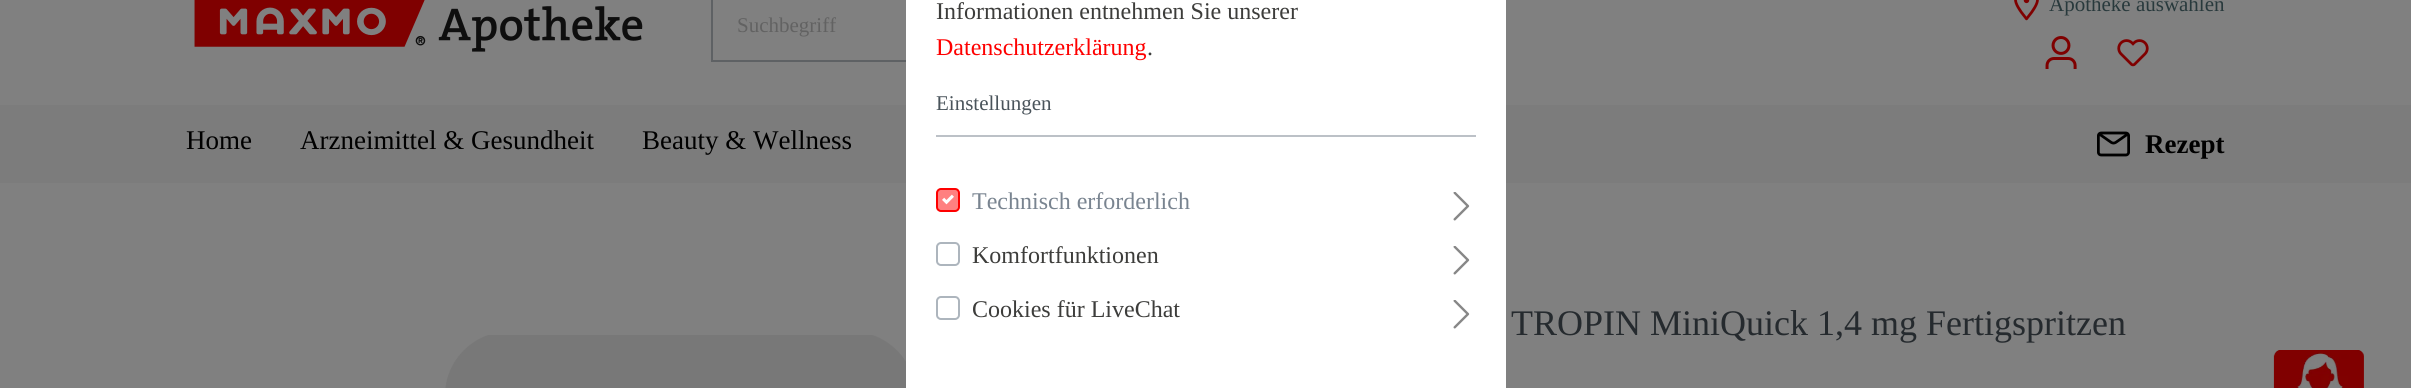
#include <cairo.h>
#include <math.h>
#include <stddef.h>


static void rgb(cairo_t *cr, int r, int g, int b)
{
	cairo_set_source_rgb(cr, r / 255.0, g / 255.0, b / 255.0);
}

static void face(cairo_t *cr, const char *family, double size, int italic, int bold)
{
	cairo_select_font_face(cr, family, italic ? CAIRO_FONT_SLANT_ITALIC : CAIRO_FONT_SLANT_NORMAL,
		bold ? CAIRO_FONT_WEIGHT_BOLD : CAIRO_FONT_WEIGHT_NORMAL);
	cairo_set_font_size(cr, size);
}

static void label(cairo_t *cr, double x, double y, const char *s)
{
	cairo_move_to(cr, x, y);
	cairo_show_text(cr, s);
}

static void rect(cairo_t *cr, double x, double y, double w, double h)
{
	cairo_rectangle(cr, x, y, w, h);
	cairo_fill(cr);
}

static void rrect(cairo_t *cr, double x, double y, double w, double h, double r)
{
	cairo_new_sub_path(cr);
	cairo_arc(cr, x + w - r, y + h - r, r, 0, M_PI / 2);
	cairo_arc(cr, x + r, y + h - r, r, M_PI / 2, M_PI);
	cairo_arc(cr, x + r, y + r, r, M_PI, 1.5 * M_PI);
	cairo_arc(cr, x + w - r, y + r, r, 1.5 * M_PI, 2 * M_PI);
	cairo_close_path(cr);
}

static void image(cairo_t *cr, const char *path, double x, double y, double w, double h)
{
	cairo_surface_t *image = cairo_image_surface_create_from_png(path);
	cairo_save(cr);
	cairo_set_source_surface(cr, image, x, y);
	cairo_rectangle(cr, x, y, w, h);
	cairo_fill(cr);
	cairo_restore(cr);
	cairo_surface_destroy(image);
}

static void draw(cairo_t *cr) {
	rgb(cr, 128, 128, 128);
	cairo_paint(cr);
	image(cr, "image0.png", 194, 0, 449, 52);
	image(cr, "image1.png", 2014, 0, 25, 21);
	face(cr, "Liberation Serif", 21, 0, 0);
	rgb(cr, 40, 57, 60);
	label(cr, 2049, 11, "Apotheke auswählen");
	image(cr, "image2.png", 2045, 36, 32, 33);
	image(cr, "image3.png", 2117, 39, 32, 28);
	rgb(cr, 94, 97, 100);
	rect(cr, 711, 60, 195, 2);
	rect(cr, 711, 0, 2, 62);
	rgb(cr, 98, 98, 98);
	label(cr, 737, 32, "Suchbegriff");
	rgb(cr, 124, 124, 124);
	rect(cr, 0, 105, 2411, 78);
	rgb(cr, 255, 255, 255);
	rect(cr, 906, 0, 600, 388);
	rgb(cr, 188, 193, 199);
	rect(cr, 936, 135, 540, 2);
	face(cr, "Liberation Serif", 24, 0, 0);
	rgb(cr, 61, 61, 59);
	label(cr, 936, 19, "Informationen entnehmen Sie unserer");
	rgb(cr, 254, 0, 0);
	label(cr, 936, 55, "Datenschutzerklärung");
	rgb(cr, 61, 61, 59);
	label(cr, 1147, 55, ".");
	face(cr, "Liberation Serif", 21, 0, 0);
	rgb(cr, 74, 84, 91);
	label(cr, 936, 110, "Einstellungen");
	rgb(cr, 255, 128, 128);
	rrect(cr, 937, 189, 22, 22, 4);
	cairo_fill_preserve(cr);
	rgb(cr, 254, 0, 0);
	cairo_stroke(cr);
	face(cr, "Liberation Serif", 24, 0, 0);
	rgb(cr, 121, 132, 144);
	label(cr, 972, 209, "Technisch erforderlich");
	image(cr, "image4.png", 942, 194, 12, 11);
	image(cr, "image5.png", 1453, 192, 17, 29);
	rrect(cr, 937, 243, 22, 22, 4);
	rgb(cr, 173, 181, 189);
	cairo_stroke(cr);
	rgb(cr, 61, 61, 59);
	label(cr, 972, 263, "Komfortfunktionen");
	image(cr, "image5.png", 1453, 246, 17, 29);
	rrect(cr, 937, 297, 22, 22, 4);
	rgb(cr, 173, 181, 189);
	cairo_stroke(cr);
	rgb(cr, 61, 61, 59);
	label(cr, 972, 317, "Cookies für LiveChat");
	image(cr, "image5.png", 1453, 300, 17, 29);
	face(cr, "Liberation Serif", 27, 0, 0);
	rgb(cr, 0, 0, 0);
	label(cr, 186, 149, "Home");
	label(cr, 300, 149, "Arzneimittel & Gesundheit");
	label(cr, 642, 149, "Beauty & Wellness");
	image(cr, "image6.png", 2097, 131, 33, 26);
	face(cr, "Liberation Serif", 27, 0, 1);
	label(cr, 2145, 153, "Rezept");
	face(cr, "Liberation Serif", 36, 0, 0);
	rgb(cr, 37, 42, 46);
	label(cr, 1511, 335, "TROPIN MiniQuick 1,4 mg Fertigspritzen");
	image(cr, "image7.png", 445, 335, 461, 53);
	image(cr, "image8.png", 2273, 350, 91, 38);
}

int main(void) {
	cairo_surface_t *surface = cairo_image_surface_create(CAIRO_FORMAT_RGB24, 2411, 388);
	cairo_t *cr = cairo_create(surface);
	cairo_font_options_t *options = cairo_font_options_create();
	cairo_font_options_set_hint_metrics(options, CAIRO_HINT_METRICS_OFF);
	cairo_font_options_set_hint_style(options, CAIRO_HINT_STYLE_NONE);
	cairo_set_font_options(cr, options);
	cairo_set_miter_limit(cr, 4);
	draw(cr);
	cairo_surface_write_to_png(surface, "render.png");
	cairo_font_options_destroy(options);
	cairo_destroy(cr);
	cairo_surface_destroy(surface);
	return 0;
}
